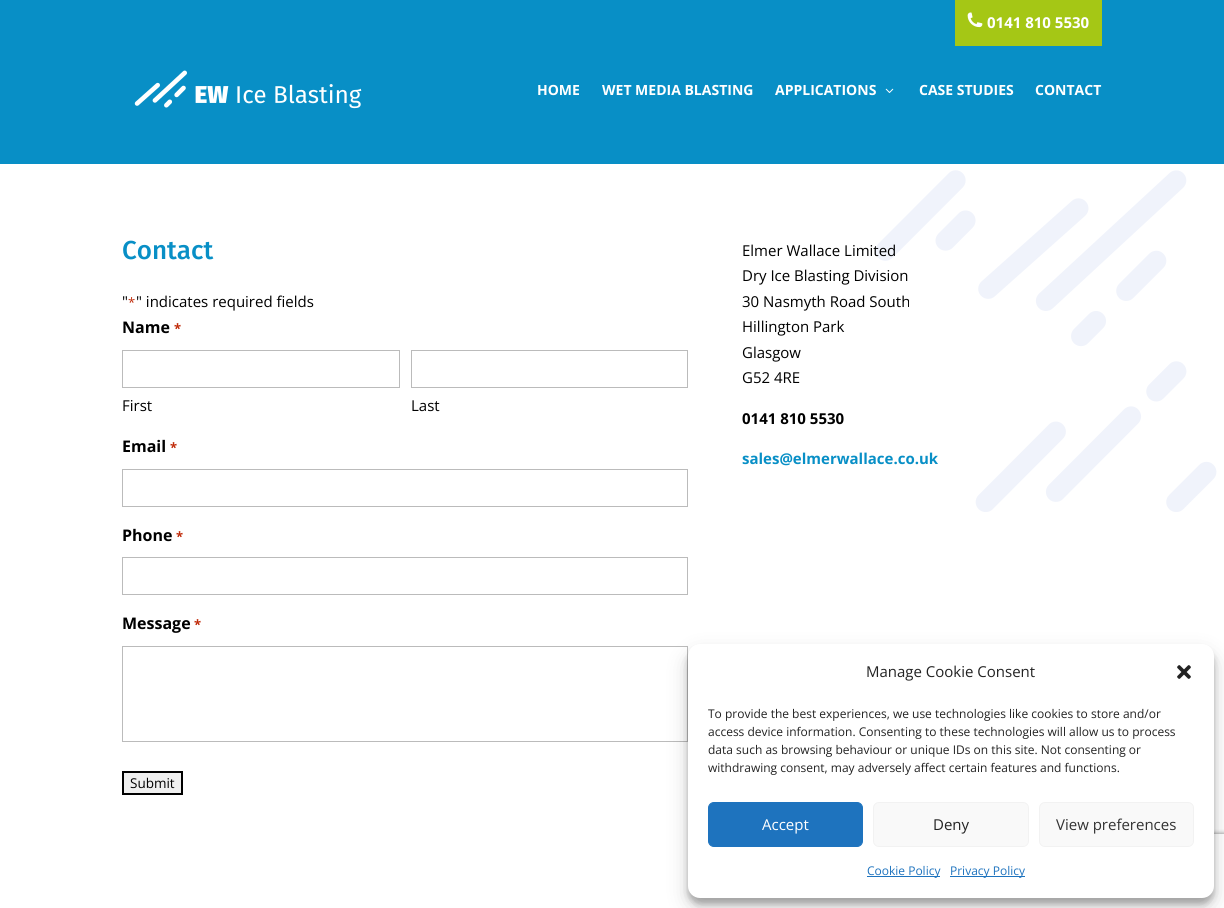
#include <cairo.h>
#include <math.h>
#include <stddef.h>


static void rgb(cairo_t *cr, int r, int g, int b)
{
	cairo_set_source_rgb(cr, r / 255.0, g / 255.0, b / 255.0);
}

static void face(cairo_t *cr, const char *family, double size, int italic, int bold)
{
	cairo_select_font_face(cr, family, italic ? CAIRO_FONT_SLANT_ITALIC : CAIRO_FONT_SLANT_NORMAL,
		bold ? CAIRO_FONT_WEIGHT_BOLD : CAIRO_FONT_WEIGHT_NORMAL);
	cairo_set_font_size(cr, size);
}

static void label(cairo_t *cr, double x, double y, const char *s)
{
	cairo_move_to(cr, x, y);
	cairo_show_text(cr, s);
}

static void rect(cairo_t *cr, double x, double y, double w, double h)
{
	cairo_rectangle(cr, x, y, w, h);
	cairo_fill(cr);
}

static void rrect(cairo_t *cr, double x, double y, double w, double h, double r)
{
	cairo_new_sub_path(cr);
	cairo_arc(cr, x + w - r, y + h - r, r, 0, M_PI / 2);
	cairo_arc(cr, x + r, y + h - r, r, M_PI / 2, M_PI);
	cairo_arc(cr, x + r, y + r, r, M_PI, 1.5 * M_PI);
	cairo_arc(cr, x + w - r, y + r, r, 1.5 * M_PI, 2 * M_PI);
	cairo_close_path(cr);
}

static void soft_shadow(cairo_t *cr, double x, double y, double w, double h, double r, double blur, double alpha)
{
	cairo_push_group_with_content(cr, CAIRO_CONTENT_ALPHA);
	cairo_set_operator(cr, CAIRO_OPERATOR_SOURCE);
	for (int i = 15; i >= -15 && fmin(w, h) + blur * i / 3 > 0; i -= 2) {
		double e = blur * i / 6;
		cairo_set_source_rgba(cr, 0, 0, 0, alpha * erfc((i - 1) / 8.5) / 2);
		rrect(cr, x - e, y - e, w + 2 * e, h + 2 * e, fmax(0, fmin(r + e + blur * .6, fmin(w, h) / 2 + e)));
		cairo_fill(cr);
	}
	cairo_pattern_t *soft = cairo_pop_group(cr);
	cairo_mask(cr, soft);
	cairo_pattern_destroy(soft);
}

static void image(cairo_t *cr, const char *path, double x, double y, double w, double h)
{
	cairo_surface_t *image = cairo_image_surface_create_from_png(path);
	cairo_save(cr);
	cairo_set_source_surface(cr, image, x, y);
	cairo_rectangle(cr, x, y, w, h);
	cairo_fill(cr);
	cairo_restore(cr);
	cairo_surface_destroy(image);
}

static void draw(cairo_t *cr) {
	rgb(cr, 255, 255, 255);
	cairo_paint(cr);
	rgb(cr, 8, 143, 198);
	rect(cr, 0, 0, 1224, 164);
	rgb(cr, 165, 199, 21);
	rect(cr, 955, 0, 147, 46);
	image(cr, "image0.png", 967, 12, 16, 16);
	face(cr, "Open Sans", 15, 0, 1);
	rgb(cr, 255, 255, 255);
	label(cr, 987, 28, "0141 810 5530");
	image(cr, "image1.png", 134, 70, 228, 39);
	face(cr, "Open Sans", 14, 0, 1);
	label(cr, 537, 95, "HOME");
	label(cr, 602, 95, "WET MEDIA BLASTING");
	label(cr, 775, 95, "APPLICATIONS");
	image(cr, "image2.png", 885, 88, 9, 5);
	label(cr, 919, 95, "CASE STUDIES");
	label(cr, 1035, 95, "CONTACT");
	image(cr, "image3.png", 875, 170, 342, 342);
	face(cr, "Fira Sans Medium", 26, 0, 0);
	rgb(cr, 8, 143, 198);
	label(cr, 122, 259, "Contact");
	face(cr, "Open Sans", 15, 0, 0);
	rgb(cr, 0, 0, 0);
	label(cr, 122, 307, "\"");
	face(cr, "Open Sans", 13, 0, 0);
	rgb(cr, 192, 43, 10);
	label(cr, 128, 307, "*");
	face(cr, "Open Sans", 15, 0, 0);
	rgb(cr, 0, 0, 0);
	label(cr, 136, 307, "\" indicates required fields");
	face(cr, "Open Sans", 16, 0, 1);
	label(cr, 122, 333, "Name");
	face(cr, "Open Sans", 13, 0, 1);
	rgb(cr, 192, 43, 10);
	label(cr, 174, 333, "*");
	cairo_rectangle(cr, 122.5, 350.5, 277, 37);
	rgb(cr, 187, 187, 187);
	cairo_set_line_width(cr, 1);
	cairo_stroke(cr);
	face(cr, "Open Sans", 15, 0, 0);
	rgb(cr, 0, 0, 0);
	label(cr, 122, 411, "First");
	cairo_rectangle(cr, 411.5, 350.5, 276, 37);
	rgb(cr, 187, 187, 187);
	cairo_stroke(cr);
	rgb(cr, 0, 0, 0);
	label(cr, 411, 411, "Last");
	face(cr, "Open Sans", 16, 0, 1);
	label(cr, 122, 452, "Email");
	face(cr, "Open Sans", 13, 0, 1);
	rgb(cr, 192, 43, 10);
	label(cr, 170, 452, "*");
	cairo_rectangle(cr, 122.5, 469.5, 565, 37);
	rgb(cr, 187, 187, 187);
	cairo_stroke(cr);
	face(cr, "Open Sans", 16, 0, 1);
	rgb(cr, 0, 0, 0);
	label(cr, 122, 541, "Phone");
	face(cr, "Open Sans", 13, 0, 1);
	rgb(cr, 192, 43, 10);
	label(cr, 176, 541, "*");
	cairo_rectangle(cr, 122.5, 557.5, 565, 37);
	rgb(cr, 187, 187, 187);
	cairo_stroke(cr);
	face(cr, "Open Sans", 16, 0, 1);
	rgb(cr, 0, 0, 0);
	label(cr, 122, 629, "Message");
	face(cr, "Open Sans", 13, 0, 1);
	rgb(cr, 192, 43, 10);
	label(cr, 194, 629, "*");
	cairo_rectangle(cr, 122.5, 646.5, 565, 95);
	rgb(cr, 187, 187, 187);
	cairo_stroke(cr);
	rgb(cr, 239, 239, 239);
	cairo_rectangle(cr, 123, 772, 59, 22);
	cairo_fill_preserve(cr);
	rgb(cr, 0, 0, 0);
	cairo_set_line_width(cr, 2);
	cairo_stroke(cr);
	face(cr, "Open Sans", 13.5, 0, 0);
	label(cr, 130, 788, "Submit");
	face(cr, "Open Sans", 15, 0, 0);
	label(cr, 742, 256, "Elmer Wallace Limited");
	label(cr, 742, 281, "Dry Ice Blasting Division");
	label(cr, 742, 307, "30 Nasmyth Road South");
	label(cr, 742, 332, "Hillington Park");
	label(cr, 742, 358, "Glasgow");
	label(cr, 742, 383, "G52 4RE");
	face(cr, "Open Sans", 15, 0, 1);
	label(cr, 742, 424, "0141 810 5530");
	rgb(cr, 8, 143, 198);
	label(cr, 742, 464, "sales@elmerwallace.co.uk");
	cairo_save(cr);
	cairo_rectangle(cr, 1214, 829, 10, 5);
	cairo_clip(cr);
	rgb(cr, 128, 128, 128);
	soft_shadow(cr, 1154, 834, 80, 60, 2, 2.5, 1);
	cairo_restore(cr);
	rgb(cr, 255, 255, 255);
	rect(cr, 1149, 844, 75, 55);
	rgb(cr, 0, 0, 0);
	soft_shadow(cr, 688, 650, 526, 254, 12, 3, 0.23);
	soft_shadow(cr, 688, 654, 526, 254, 12, 10, 0.19);
	rgb(cr, 255, 255, 255);
	rrect(cr, 688, 644, 526, 254, 12);
	cairo_fill(cr);
	face(cr, "Open Sans", 15, 0, 0);
	rgb(cr, 34, 34, 34);
	label(cr, 866, 677, "Manage Cookie Consent");
	image(cr, "image4.png", 1177, 665, 14, 14);
	face(cr, "Open Sans", 12, 0, 0);
	label(cr, 708, 718, "To provide the best experiences, we use technologies like cookies to store and/or");
	label(cr, 708, 736, "access device information. Consenting to these technologies will allow us to process");
	label(cr, 708, 754, "data such as browsing behaviour or unique IDs on this site. Not consenting or");
	label(cr, 708, 772, "withdrawing consent, may adversely affect certain features and functions.");
	rgb(cr, 30, 115, 190);
	rrect(cr, 708.5, 802.5, 154, 44, 5.5);
	cairo_fill_preserve(cr);
	cairo_set_line_width(cr, 1);
	cairo_stroke(cr);
	face(cr, "Open Sans", 15, 0, 0);
	rgb(cr, 255, 255, 255);
	label(cr, 762, 830, "Accept");
	rgb(cr, 249, 249, 249);
	rrect(cr, 873.5, 802.5, 155, 44, 5.5);
	cairo_fill_preserve(cr);
	rgb(cr, 242, 242, 242);
	cairo_stroke(cr);
	rgb(cr, 34, 34, 34);
	label(cr, 933, 830, "Deny");
	rgb(cr, 249, 249, 249);
	rrect(cr, 1039.5, 802.5, 154, 44, 5.5);
	cairo_fill_preserve(cr);
	rgb(cr, 242, 242, 242);
	cairo_stroke(cr);
	rgb(cr, 51, 51, 51);
	label(cr, 1056, 830, "View preferences");
	rgb(cr, 30, 115, 190);
	rect(cr, 867, 876, 73, 1);
	face(cr, "Open Sans", 12, 0, 0);
	label(cr, 867, 875, "Cookie Policy");
	rect(cr, 950, 876, 75, 1);
	label(cr, 950, 875, "Privacy Policy");
}

int main(void) {
	cairo_surface_t *surface = cairo_image_surface_create(CAIRO_FORMAT_RGB24, 1224, 908);
	cairo_t *cr = cairo_create(surface);
	cairo_font_options_t *options = cairo_font_options_create();
	cairo_font_options_set_hint_metrics(options, CAIRO_HINT_METRICS_OFF);
	cairo_font_options_set_hint_style(options, CAIRO_HINT_STYLE_NONE);
	cairo_set_font_options(cr, options);
	cairo_set_miter_limit(cr, 4);
	draw(cr);
	cairo_surface_write_to_png(surface, "render.png");
	cairo_font_options_destroy(options);
	cairo_destroy(cr);
	cairo_surface_destroy(surface);
	return 0;
}
